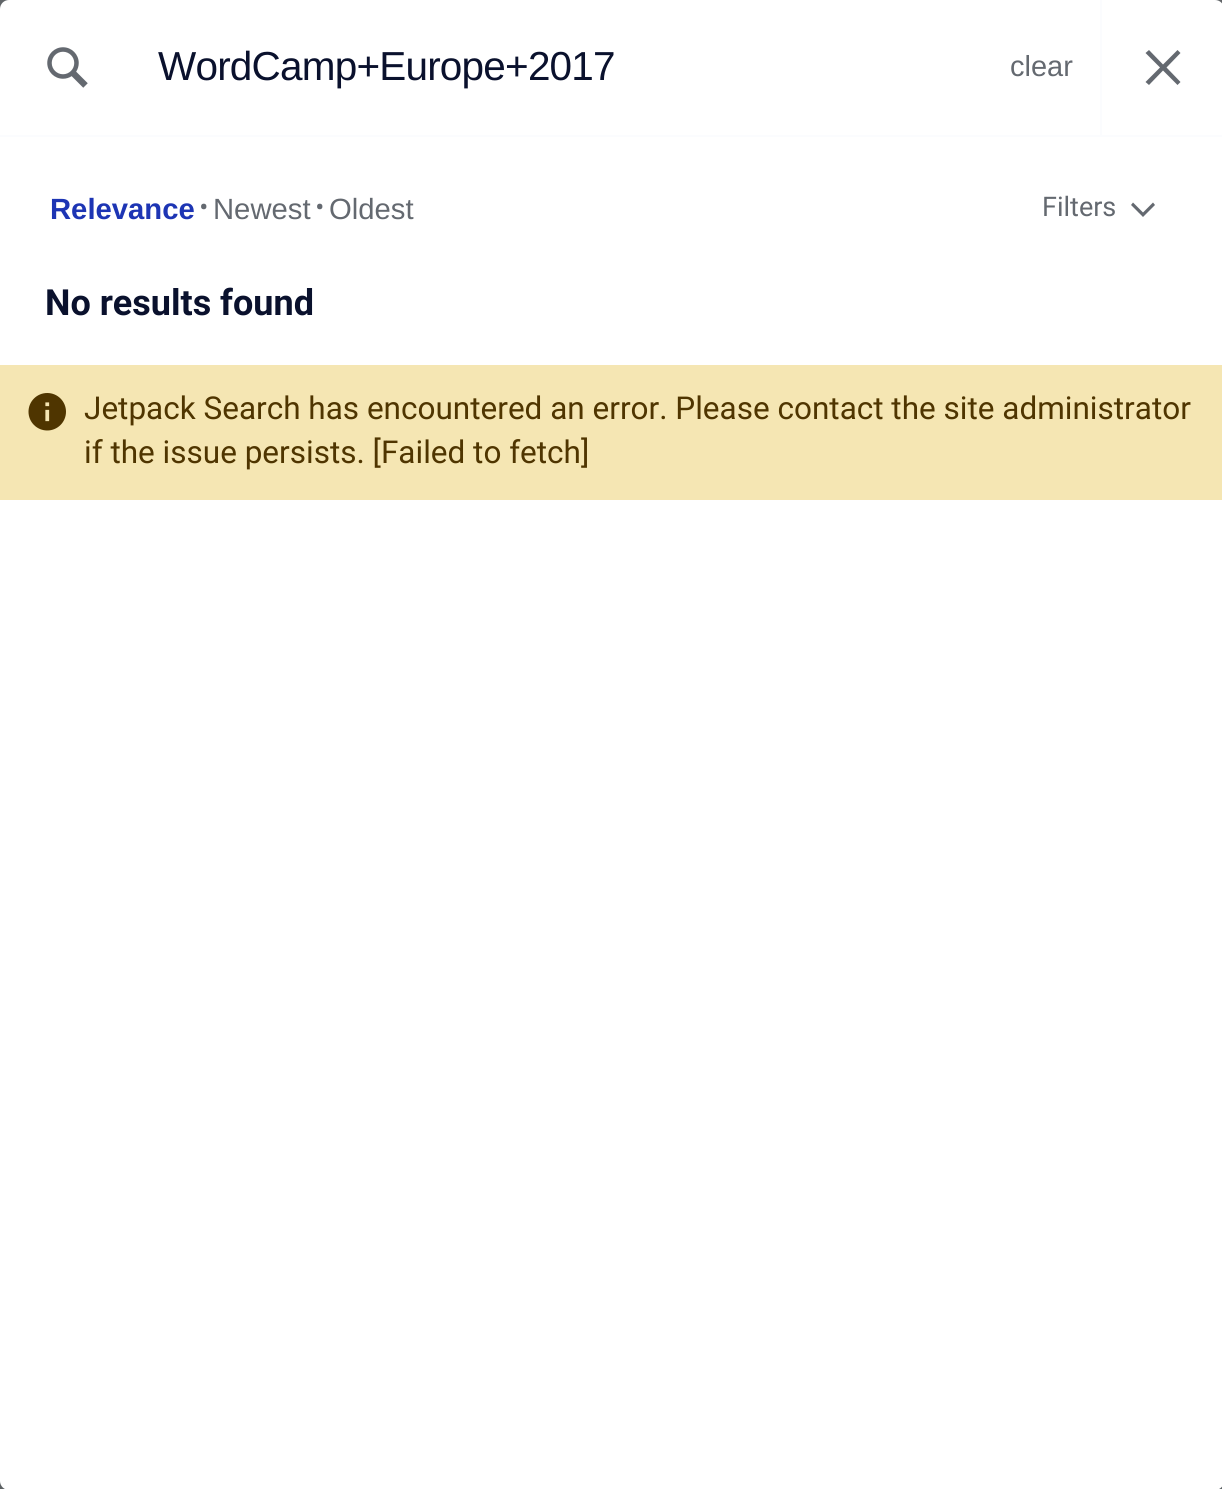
#include <cairo.h>
#include <math.h>
#include <stddef.h>


static void rgb(cairo_t *cr, int r, int g, int b)
{
	cairo_set_source_rgb(cr, r / 255.0, g / 255.0, b / 255.0);
}

static void face(cairo_t *cr, const char *family, double size, int italic, int bold)
{
	cairo_select_font_face(cr, family, italic ? CAIRO_FONT_SLANT_ITALIC : CAIRO_FONT_SLANT_NORMAL,
		bold ? CAIRO_FONT_WEIGHT_BOLD : CAIRO_FONT_WEIGHT_NORMAL);
	cairo_set_font_size(cr, size);
}

static void label(cairo_t *cr, double x, double y, const char *s)
{
	cairo_move_to(cr, x, y);
	cairo_show_text(cr, s);
}

static void tracked(cairo_t *cr, double x, double y, const char *s, double letter, double word)
{
	cairo_move_to(cr, x, y);
	while (*s) {
		char ch[5] = {0};
		int n = 0;
		do ch[n++] = *s++; while ((*s & 0xC0) == 0x80);
		cairo_show_text(cr, ch);
		cairo_rel_move_to(cr, letter + word * (*ch == ' '), 0);
	}
}

static void rect(cairo_t *cr, double x, double y, double w, double h)
{
	cairo_rectangle(cr, x, y, w, h);
	cairo_fill(cr);
}

static void rrect(cairo_t *cr, double x, double y, double w, double h, double r)
{
	cairo_new_sub_path(cr);
	cairo_arc(cr, x + w - r, y + h - r, r, 0, M_PI / 2);
	cairo_arc(cr, x + r, y + h - r, r, M_PI / 2, M_PI);
	cairo_arc(cr, x + r, y + r, r, M_PI, 1.5 * M_PI);
	cairo_arc(cr, x + w - r, y + r, r, 1.5 * M_PI, 2 * M_PI);
	cairo_close_path(cr);
}

static void image(cairo_t *cr, const char *path, double x, double y, double w, double h)
{
	cairo_surface_t *image = cairo_image_surface_create_from_png(path);
	cairo_save(cr);
	cairo_set_source_surface(cr, image, x, y);
	cairo_rectangle(cr, x, y, w, h);
	cairo_fill(cr);
	cairo_restore(cr);
	cairo_surface_destroy(image);
}

static void draw(cairo_t *cr) {
	rgb(cr, 97, 101, 104);
	cairo_paint(cr);
	rgb(cr, 92, 97, 99);
	rect(cr, 0, 1481, 1222, 8);
	rgb(cr, 255, 255, 255);
	rrect(cr, 0, 0, 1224, 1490, 9);
	cairo_fill(cr);
	rgb(cr, 251, 252, 254);
	rect(cr, 1100, 0, 2, 137);
	rect(cr, 0, 135, 1222, 2);
	image(cr, "image0.png", 47, 47, 41, 41);
	face(cr, "Liberation Sans", 40.5, 0, 0);
	rgb(cr, 10, 17, 45);
	tracked(cr, 158, 80, "WordCamp+Europe+2017", -0.8, 0);
	face(cr, "Liberation Sans", 29, 0, 0);
	rgb(cr, 100, 105, 112);
	label(cr, 1010, 76, "clear");
	cairo_new_path(cr);
	cairo_move_to(cr, 1177.5, 85);
	cairo_line_to(cr, 1163, 70.5);
	cairo_line_to(cr, 1149, 85);
	cairo_line_to(cr, 1145.5, 82);
	cairo_line_to(cr, 1160, 67.5);
	cairo_line_to(cr, 1145.5, 53);
	cairo_line_to(cr, 1149, 50);
	cairo_line_to(cr, 1163, 64.5);
	cairo_line_to(cr, 1177.5, 50);
	cairo_line_to(cr, 1180.5, 53);
	cairo_line_to(cr, 1166.5, 67.5);
	cairo_line_to(cr, 1180.5, 82);
	cairo_close_path(cr);
	cairo_fill(cr);
	face(cr, "Liberation Sans", 29.25, 0, 1);
	rgb(cr, 29, 53, 180);
	label(cr, 50, 219, "Relevance");
	face(cr, "Roboto Light", 29.25, 0, 0);
	rgb(cr, 100, 105, 112);
	label(cr, 199, 217, "•");
	face(cr, "Liberation Sans", 29.25, 0, 0);
	label(cr, 213, 219, "Newest");
	face(cr, "Roboto Light", 29.25, 0, 0);
	label(cr, 315, 217, "•");
	face(cr, "Liberation Sans", 29.25, 0, 0);
	label(cr, 329, 219, "Oldest");
	face(cr, "Roboto", 27, 0, 0);
	label(cr, 1042, 216, "Filters");
	cairo_new_path(cr);
	cairo_move_to(cr, 1155, 205);
	cairo_line_to(cr, 1143, 217);
	cairo_line_to(cr, 1131, 205);
	cairo_line_to(cr, 1133, 202.5);
	cairo_line_to(cr, 1143, 212.5);
	cairo_line_to(cr, 1153, 202.5);
	cairo_fill(cr);
	face(cr, "Roboto", 36, 0, 1);
	rgb(cr, 10, 17, 45);
	label(cr, 45, 315, "No results found");
	rgb(cr, 245, 230, 179);
	rect(cr, 0, 365, 1222, 135);
	image(cr, "image1.png", 28, 393, 38, 38);
	face(cr, "Roboto", 31.5, 0, 0);
	rgb(cr, 79, 53, 0);
	label(cr, 84, 419, "Jetpack Search has encountered an error. Please contact the site administrator");
	label(cr, 84, 463, "if the issue persists. [Failed to fetch]");
}

int main(void) {
	cairo_surface_t *surface = cairo_image_surface_create(CAIRO_FORMAT_RGB24, 1222, 1489);
	cairo_t *cr = cairo_create(surface);
	cairo_font_options_t *options = cairo_font_options_create();
	cairo_font_options_set_hint_metrics(options, CAIRO_HINT_METRICS_OFF);
	cairo_font_options_set_hint_style(options, CAIRO_HINT_STYLE_NONE);
	cairo_set_font_options(cr, options);
	cairo_set_miter_limit(cr, 4);
	draw(cr);
	cairo_surface_write_to_png(surface, "render.png");
	cairo_font_options_destroy(options);
	cairo_destroy(cr);
	cairo_surface_destroy(surface);
	return 0;
}
